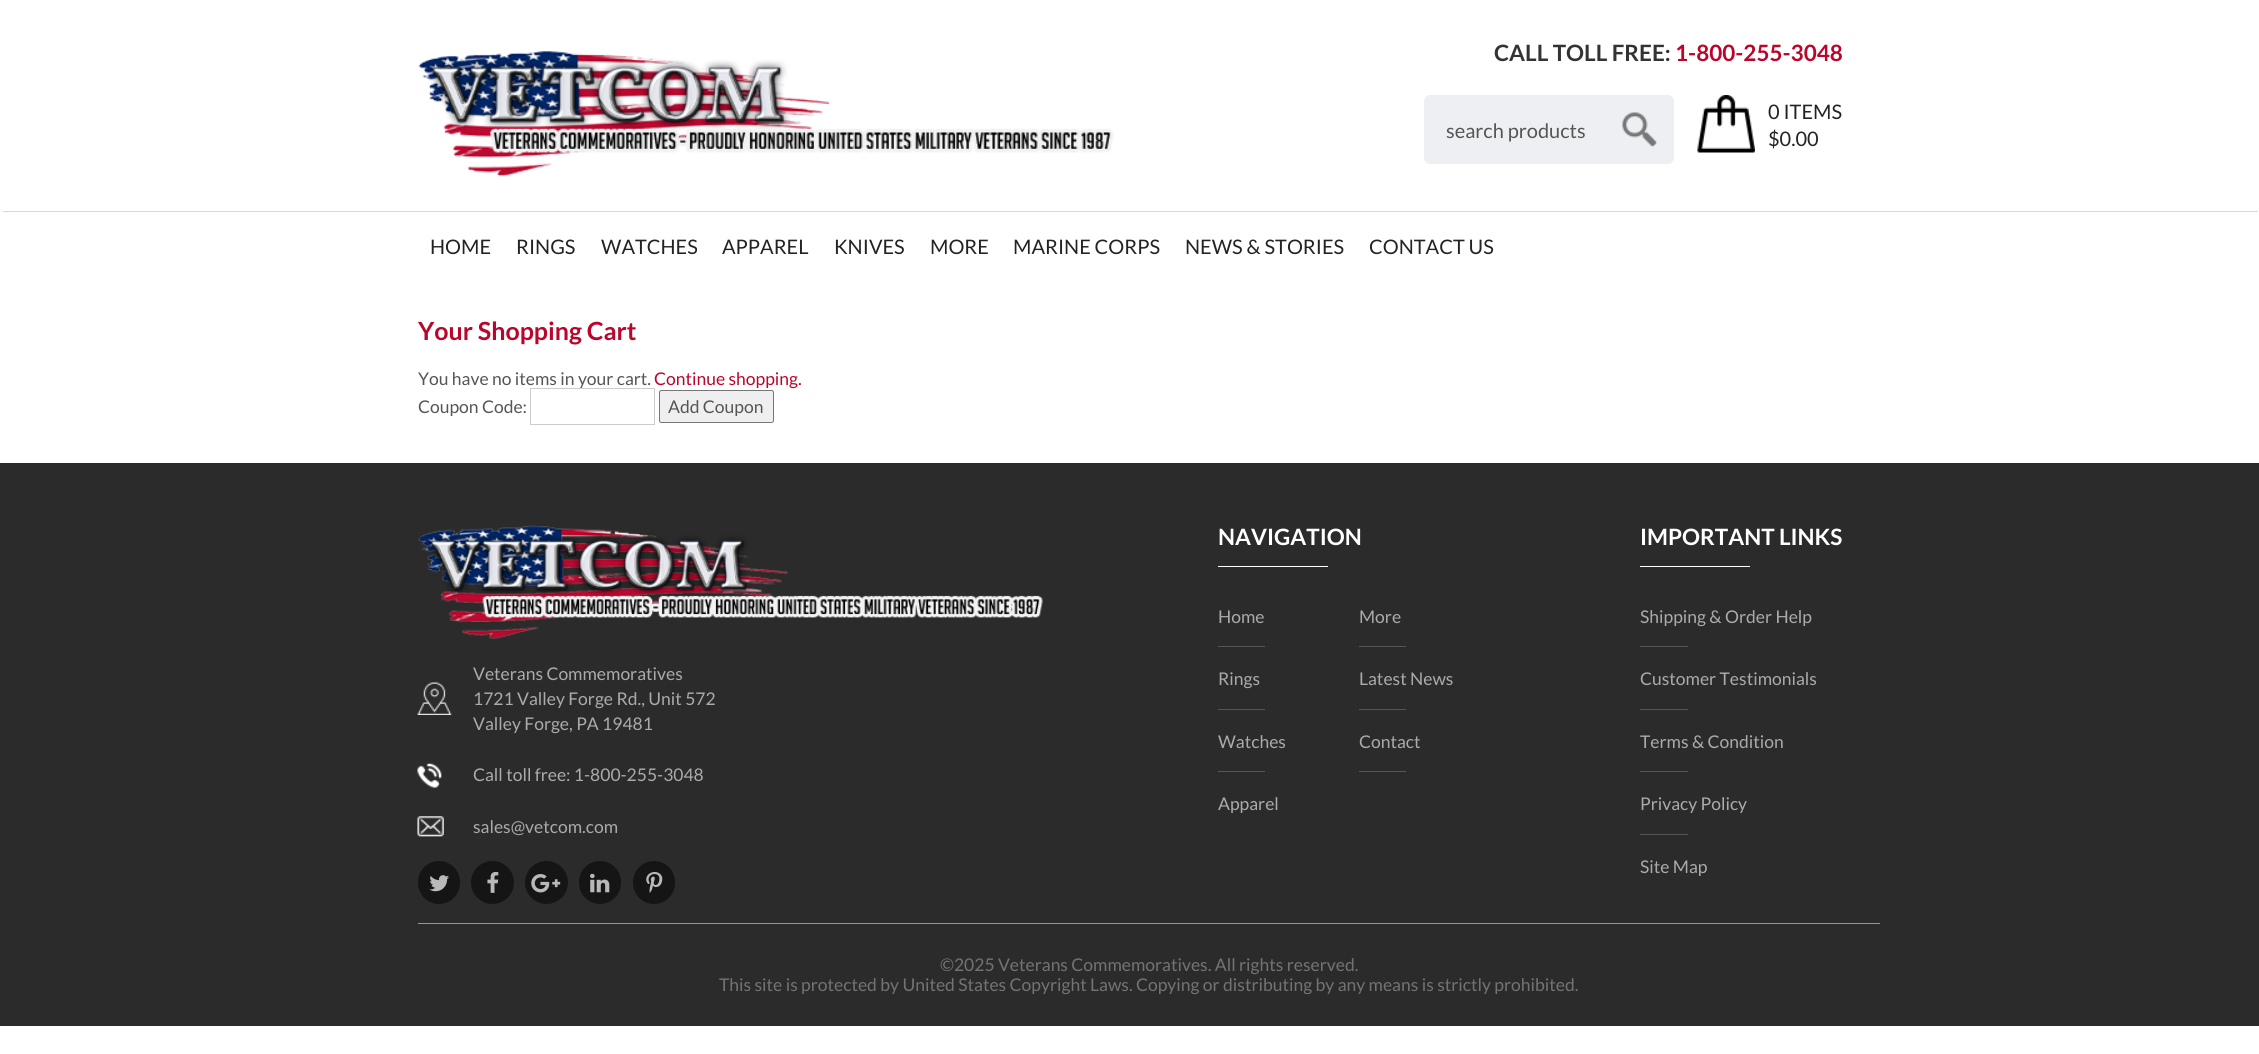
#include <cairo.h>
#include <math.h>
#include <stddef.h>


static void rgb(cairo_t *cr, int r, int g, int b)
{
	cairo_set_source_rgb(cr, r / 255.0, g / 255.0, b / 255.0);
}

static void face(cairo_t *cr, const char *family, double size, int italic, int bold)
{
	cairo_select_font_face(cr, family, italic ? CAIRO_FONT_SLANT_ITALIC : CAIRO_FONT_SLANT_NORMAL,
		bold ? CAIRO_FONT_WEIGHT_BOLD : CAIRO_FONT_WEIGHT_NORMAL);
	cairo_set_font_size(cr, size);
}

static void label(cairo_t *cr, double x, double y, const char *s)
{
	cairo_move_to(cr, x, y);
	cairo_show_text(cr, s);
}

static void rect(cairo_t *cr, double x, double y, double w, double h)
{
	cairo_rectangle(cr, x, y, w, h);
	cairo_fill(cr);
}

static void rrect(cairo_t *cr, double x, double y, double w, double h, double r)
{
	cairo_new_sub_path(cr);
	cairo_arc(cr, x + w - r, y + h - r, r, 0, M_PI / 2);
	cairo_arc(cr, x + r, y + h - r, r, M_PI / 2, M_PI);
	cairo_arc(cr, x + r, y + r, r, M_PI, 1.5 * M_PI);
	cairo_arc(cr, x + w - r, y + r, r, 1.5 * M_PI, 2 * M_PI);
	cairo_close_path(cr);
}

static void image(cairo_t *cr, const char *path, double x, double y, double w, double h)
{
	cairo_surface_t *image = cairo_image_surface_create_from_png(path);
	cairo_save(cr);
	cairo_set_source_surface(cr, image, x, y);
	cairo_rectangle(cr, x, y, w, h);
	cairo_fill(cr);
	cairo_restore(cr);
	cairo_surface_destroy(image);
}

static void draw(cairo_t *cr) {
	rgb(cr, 255, 255, 255);
	cairo_paint(cr);
	image(cr, "image0.png", 418, 51, 696, 126);
	face(cr, "Lato", 22.5, 0, 1);
	rgb(cr, 51, 51, 51);
	label(cr, 1494, 61, "CALL TOLL FREE:");
	rgb(cr, 188, 5, 42);
	label(cr, 1675, 61, "1-800-255-3048");
	rgb(cr, 238, 239, 242);
	rrect(cr, 1424, 95, 250, 69, 6);
	cairo_fill(cr);
	face(cr, "Lato", 20, 0, 0);
	rgb(cr, 85, 85, 85);
	label(cr, 1446, 138, "search products");
	image(cr, "image1.png", 1622, 112, 35, 35);
	image(cr, "image2.png", 1697, 95, 58, 58);
	rgb(cr, 35, 35, 35);
	label(cr, 1768, 119, "0 ITEMS");
	label(cr, 1768, 146, "$0.00");
	rgb(cr, 217, 217, 217);
	rect(cr, 3, 211, 2255, 1);
	rgb(cr, 35, 35, 35);
	label(cr, 430, 254, "HOME");
	label(cr, 516, 254, "RINGS");
	label(cr, 601, 254, "WATCHES");
	label(cr, 722, 254, "APPAREL");
	label(cr, 834, 254, "KNIVES");
	label(cr, 930, 254, "MORE");
	label(cr, 1013, 254, "MARINE CORPS");
	label(cr, 1185, 254, "NEWS & STORIES");
	label(cr, 1369, 254, "CONTACT US");
	face(cr, "Lato", 25, 0, 1);
	rgb(cr, 188, 5, 42);
	label(cr, 418, 340, "Your Shopping Cart");
	face(cr, "Lato", 17.5, 0, 0);
	rgb(cr, 85, 85, 85);
	label(cr, 418, 385, "You have no items in your cart.");
	rgb(cr, 188, 5, 42);
	label(cr, 654, 385, "Continue shopping.");
	rgb(cr, 85, 85, 85);
	label(cr, 418, 413, "Coupon Code:");
	cairo_rectangle(cr, 530.5, 388.5, 124, 36);
	rgb(cr, 204, 204, 204);
	cairo_set_line_width(cr, 1);
	cairo_stroke(cr);
	rgb(cr, 239, 239, 239);
	rrect(cr, 659.5, 390.5, 114, 32, 2);
	cairo_fill_preserve(cr);
	rgb(cr, 118, 118, 118);
	cairo_stroke(cr);
	rgb(cr, 85, 85, 85);
	label(cr, 668, 413, "Add Coupon");
	rgb(cr, 42, 43, 42);
	rect(cr, 0, 463, 2259, 563);
	image(cr, "image3.png", 418, 525, 625, 114);
	image(cr, "image4.png", 417, 682, 35, 33);
	rgb(cr, 171, 171, 171);
	label(cr, 473, 680, "Veterans Commemoratives");
	label(cr, 473, 705, "1721 Valley Forge Rd., Unit 572");
	label(cr, 473, 730, "Valley Forge, PA 19481");
	image(cr, "image5.png", 417, 763, 25, 25);
	label(cr, 473, 781, "Call toll free: 1-800-255-3048");
	image(cr, "image6.png", 417, 816, 27, 21);
	label(cr, 473, 833, "sales@vetcom.com");
	rgb(cr, 21, 21, 21);
	rrect(cr, 418, 861, 42, 43, 21);
	cairo_fill(cr);
	image(cr, "image7.png", 429, 875, 20, 17);
	cairo_arc(cr, 492.5, 882.5, 21.5, 0, 2 * M_PI);
	cairo_fill(cr);
	image(cr, "image8.png", 487, 872, 12, 21);
	cairo_arc(cr, 546.5, 882.5, 21.5, 0, 2 * M_PI);
	cairo_fill(cr);
	image(cr, "image9.png", 531, 874, 30, 19);
	rrect(cr, 579, 861, 42, 43, 21);
	cairo_fill(cr);
	image(cr, "image10.png", 590, 873, 20, 20);
	rrect(cr, 633, 861, 42, 43, 21);
	cairo_fill(cr);
	image(cr, "image11.png", 646, 872, 17, 21);
	face(cr, "Lato", 22.5, 0, 1);
	rgb(cr, 255, 255, 255);
	label(cr, 1218, 545, "NAVIGATION");
	rect(cr, 1218, 566, 110, 1);
	face(cr, "Lato", 17.5, 0, 0);
	rgb(cr, 171, 171, 171);
	label(cr, 1218, 623, "Home");
	rgb(cr, 85, 85, 85);
	rect(cr, 1218, 646, 47, 1);
	rgb(cr, 171, 171, 171);
	label(cr, 1359, 623, "More");
	rgb(cr, 85, 85, 85);
	rect(cr, 1359, 646, 47, 1);
	rgb(cr, 171, 171, 171);
	label(cr, 1218, 685, "Rings");
	rgb(cr, 85, 85, 85);
	rect(cr, 1218, 709, 47, 1);
	rgb(cr, 171, 171, 171);
	label(cr, 1359, 685, "Latest News");
	rgb(cr, 85, 85, 85);
	rect(cr, 1359, 709, 47, 1);
	rgb(cr, 171, 171, 171);
	label(cr, 1218, 748, "Watches");
	rgb(cr, 85, 85, 85);
	rect(cr, 1218, 771, 47, 1);
	rgb(cr, 171, 171, 171);
	label(cr, 1359, 748, "Contact");
	rgb(cr, 85, 85, 85);
	rect(cr, 1359, 771, 47, 1);
	rgb(cr, 171, 171, 171);
	label(cr, 1218, 810, "Apparel");
	face(cr, "Lato", 22.5, 0, 1);
	rgb(cr, 255, 255, 255);
	label(cr, 1640, 545, "IMPORTANT LINKS");
	rect(cr, 1640, 566, 110, 1);
	face(cr, "Lato", 17.5, 0, 0);
	rgb(cr, 171, 171, 171);
	label(cr, 1640, 623, "Shipping & Order Help");
	rgb(cr, 85, 85, 85);
	rect(cr, 1640, 646, 48, 1);
	rgb(cr, 171, 171, 171);
	label(cr, 1640, 685, "Customer Testimonials");
	rgb(cr, 85, 85, 85);
	rect(cr, 1640, 709, 48, 1);
	rgb(cr, 171, 171, 171);
	label(cr, 1640, 748, "Terms & Condition");
	rgb(cr, 85, 85, 85);
	rect(cr, 1640, 771, 48, 1);
	rgb(cr, 171, 171, 171);
	label(cr, 1640, 810, "Privacy Policy");
	rgb(cr, 85, 85, 85);
	rect(cr, 1640, 834, 48, 1);
	rgb(cr, 171, 171, 171);
	label(cr, 1640, 873, "Site Map");
	rgb(cr, 149, 149, 149);
	rect(cr, 418, 923, 1462, 1);
	rgb(cr, 115, 115, 115);
	label(cr, 940, 971, "©2025 Veterans Commemoratives. All rights reserved.");
	label(cr, 719, 991, "This site is protected by United States Copyright Laws. Copying or distributing by any means is strictly prohibited.");
}

int main(void) {
	cairo_surface_t *surface = cairo_image_surface_create(CAIRO_FORMAT_RGB24, 2259, 1054);
	cairo_t *cr = cairo_create(surface);
	cairo_font_options_t *options = cairo_font_options_create();
	cairo_font_options_set_hint_metrics(options, CAIRO_HINT_METRICS_OFF);
	cairo_font_options_set_hint_style(options, CAIRO_HINT_STYLE_NONE);
	cairo_set_font_options(cr, options);
	cairo_set_miter_limit(cr, 4);
	draw(cr);
	cairo_surface_write_to_png(surface, "render.png");
	cairo_font_options_destroy(options);
	cairo_destroy(cr);
	cairo_surface_destroy(surface);
	return 0;
}
